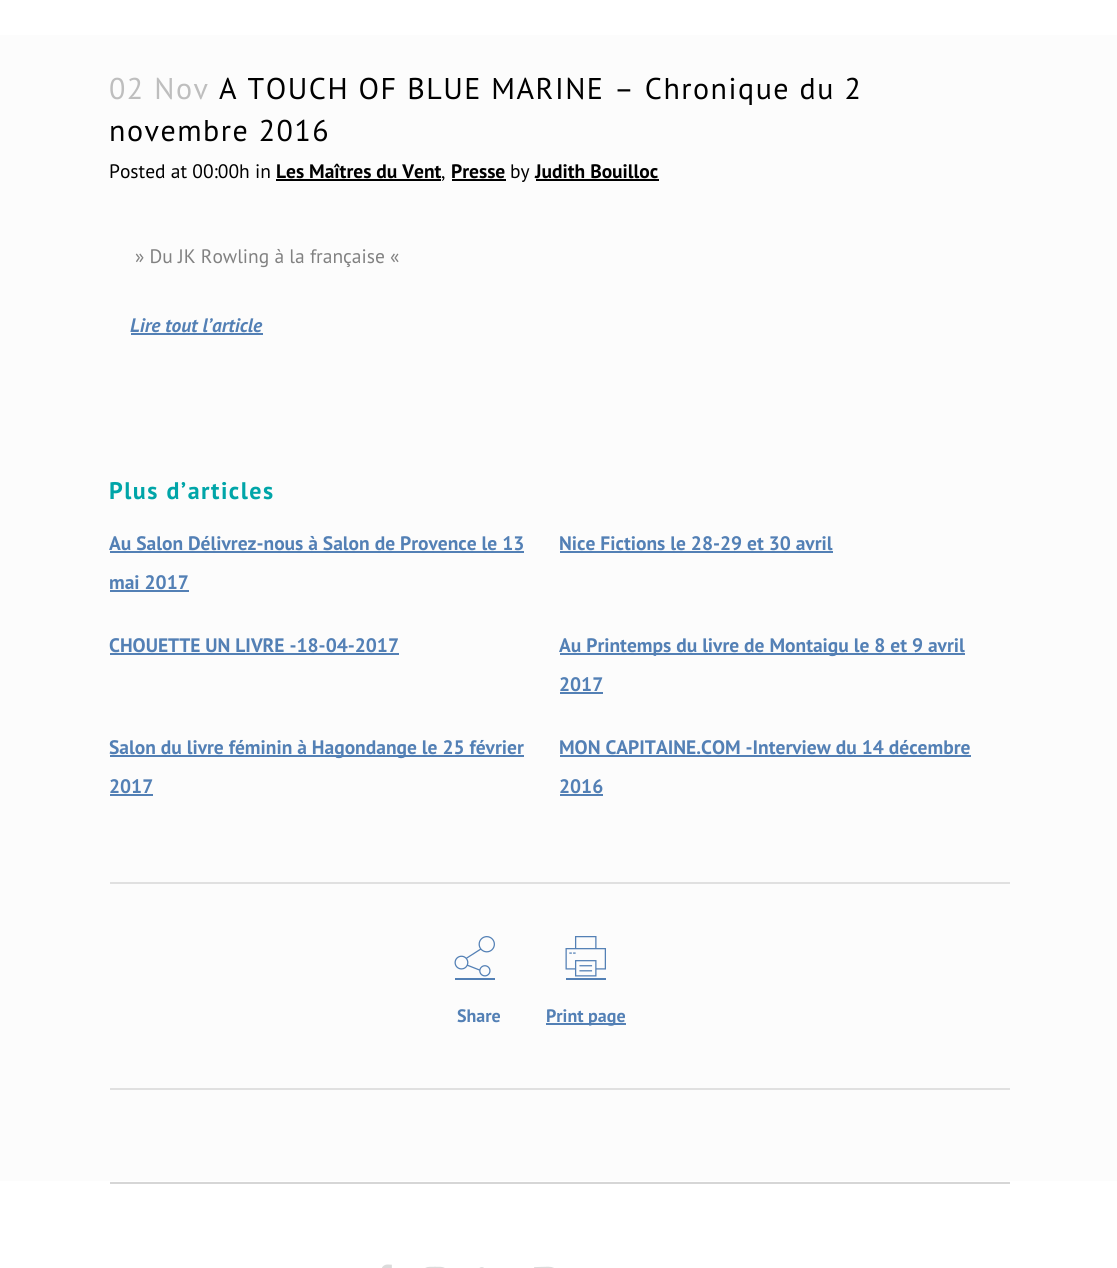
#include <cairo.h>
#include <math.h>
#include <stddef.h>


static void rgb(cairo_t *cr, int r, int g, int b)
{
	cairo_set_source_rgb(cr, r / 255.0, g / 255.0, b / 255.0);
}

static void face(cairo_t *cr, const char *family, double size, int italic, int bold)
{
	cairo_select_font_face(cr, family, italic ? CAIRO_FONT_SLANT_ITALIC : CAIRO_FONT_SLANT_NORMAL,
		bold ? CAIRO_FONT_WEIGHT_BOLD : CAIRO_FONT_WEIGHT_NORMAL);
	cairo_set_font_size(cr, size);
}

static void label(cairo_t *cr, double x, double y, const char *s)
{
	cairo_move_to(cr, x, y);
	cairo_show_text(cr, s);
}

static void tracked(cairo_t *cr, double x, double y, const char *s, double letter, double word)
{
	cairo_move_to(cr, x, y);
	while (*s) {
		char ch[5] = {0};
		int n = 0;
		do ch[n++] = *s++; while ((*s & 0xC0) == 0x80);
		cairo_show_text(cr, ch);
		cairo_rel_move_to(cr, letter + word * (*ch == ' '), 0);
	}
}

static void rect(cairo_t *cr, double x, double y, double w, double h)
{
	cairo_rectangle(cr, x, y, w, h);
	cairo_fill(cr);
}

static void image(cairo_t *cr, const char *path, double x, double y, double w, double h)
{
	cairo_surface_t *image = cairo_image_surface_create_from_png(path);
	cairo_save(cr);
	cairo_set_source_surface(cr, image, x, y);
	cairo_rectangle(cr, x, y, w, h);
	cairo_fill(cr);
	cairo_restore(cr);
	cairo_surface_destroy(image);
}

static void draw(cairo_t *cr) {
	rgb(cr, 252, 252, 252);
	cairo_paint(cr);
	rgb(cr, 255, 255, 255);
	rect(cr, 0, 0, 1117, 35);
	face(cr, "PT Sans", 30, 0, 0);
	rgb(cr, 190, 190, 190);
	tracked(cr, 109, 99, "02 Nov", 1.5, 0);
	rgb(cr, 0, 0, 0);
	tracked(cr, 219, 99, "A TOUCH OF BLUE MARINE – Chronique du 2", 1.5, 0);
	tracked(cr, 109, 141, "novembre 2016", 1.5, 0);
	face(cr, "PT Sans", 19.5, 0, 0);
	label(cr, 109, 178, "Posted at 00:00h in");
	face(cr, "PT Sans", 19.5, 0, 1);
	label(cr, 276, 178, "Les Maîtres du Vent");
	rect(cr, 276, 179, 165, 2);
	face(cr, "PT Sans", 19.5, 0, 0);
	label(cr, 441, 178, ",");
	face(cr, "PT Sans", 19.5, 0, 1);
	label(cr, 451, 178, "Presse");
	rect(cr, 452, 179, 54, 2);
	face(cr, "PT Sans", 19.5, 0, 0);
	label(cr, 510, 178, "by");
	face(cr, "PT Sans", 19.5, 0, 1);
	label(cr, 535, 178, "Judith Bouilloc");
	rect(cr, 536, 179, 123, 2);
	face(cr, "PT Sans", 19.5, 0, 0);
	rgb(cr, 129, 129, 129);
	label(cr, 135, 263, "» Du JK Rowling à la française «");
	face(cr, "PT Sans", 19.5, 1, 1);
	rgb(cr, 83, 128, 181);
	label(cr, 130, 332, "Lire tout l’article");
	rect(cr, 131, 333, 132, 2);
	face(cr, "PT Sans", 24, 0, 1);
	rgb(cr, 0, 165, 168);
	tracked(cr, 109, 499, "Plus d’articles", 1.5, 0);
	face(cr, "PT Sans", 19.5, 0, 1);
	rgb(cr, 83, 128, 181);
	label(cr, 109, 550, "Au Salon Délivrez-nous à Salon de Provence le 13");
	rect(cr, 110, 551, 414, 2);
	label(cr, 109, 589, "mai 2017");
	rect(cr, 110, 590, 79, 2);
	label(cr, 559, 550, "Nice Fictions le 28-29 et 30 avril");
	rect(cr, 560, 551, 273, 2);
	label(cr, 109, 652, "CHOUETTE UN LIVRE -18-04-2017");
	rect(cr, 110, 653, 289, 2);
	rect(cr, 560, 653, 405, 2);
	label(cr, 559, 652, "Au Printemps du livre de Montaigu le 8 et 9 avril");
	label(cr, 559, 691, "2017");
	rect(cr, 560, 692, 43, 2);
	rect(cr, 110, 755, 414, 2);
	label(cr, 109, 754, "Salon du livre féminin à Hagondange le 25 février");
	label(cr, 109, 793, "2017");
	rect(cr, 110, 794, 43, 2);
	label(cr, 559, 754, "MON CAPITAINE.COM -Interview du 14 décembre");
	rect(cr, 560, 755, 411, 2);
	label(cr, 559, 793, "2016");
	rect(cr, 560, 794, 43, 2);
	rgb(cr, 224, 224, 224);
	rect(cr, 110, 882, 900, 2);
	rect(cr, 110, 1088, 900, 2);
	image(cr, "image0.png", 454, 936, 41, 41);
	rgb(cr, 83, 128, 181);
	rect(cr, 455, 978, 40, 2);
	face(cr, "PT Sans", 18, 0, 1);
	label(cr, 457, 1022, "Share");
	image(cr, "image1.png", 565, 936, 41, 41);
	rect(cr, 566, 978, 40, 2);
	rect(cr, 546, 1023, 80, 2);
	label(cr, 546, 1022, "Print page");
	rgb(cr, 255, 255, 255);
	rect(cr, 0, 1181, 1117, 87);
	rgb(cr, 214, 214, 214);
	rect(cr, 110, 1182, 900, 2);
	image(cr, "image2.png", 382, 1264, 10, 4);
	image(cr, "image3.png", 425, 1266, 20, 2);
	image(cr, "image4.png", 479, 1267, 5, 1);
	image(cr, "image5.png", 534, 1266, 20, 2);
}

int main(void) {
	cairo_surface_t *surface = cairo_image_surface_create(CAIRO_FORMAT_RGB24, 1117, 1268);
	cairo_t *cr = cairo_create(surface);
	cairo_font_options_t *options = cairo_font_options_create();
	cairo_font_options_set_hint_metrics(options, CAIRO_HINT_METRICS_OFF);
	cairo_font_options_set_hint_style(options, CAIRO_HINT_STYLE_NONE);
	cairo_set_font_options(cr, options);
	cairo_set_miter_limit(cr, 4);
	draw(cr);
	cairo_surface_write_to_png(surface, "render.png");
	cairo_font_options_destroy(options);
	cairo_destroy(cr);
	cairo_surface_destroy(surface);
	return 0;
}
